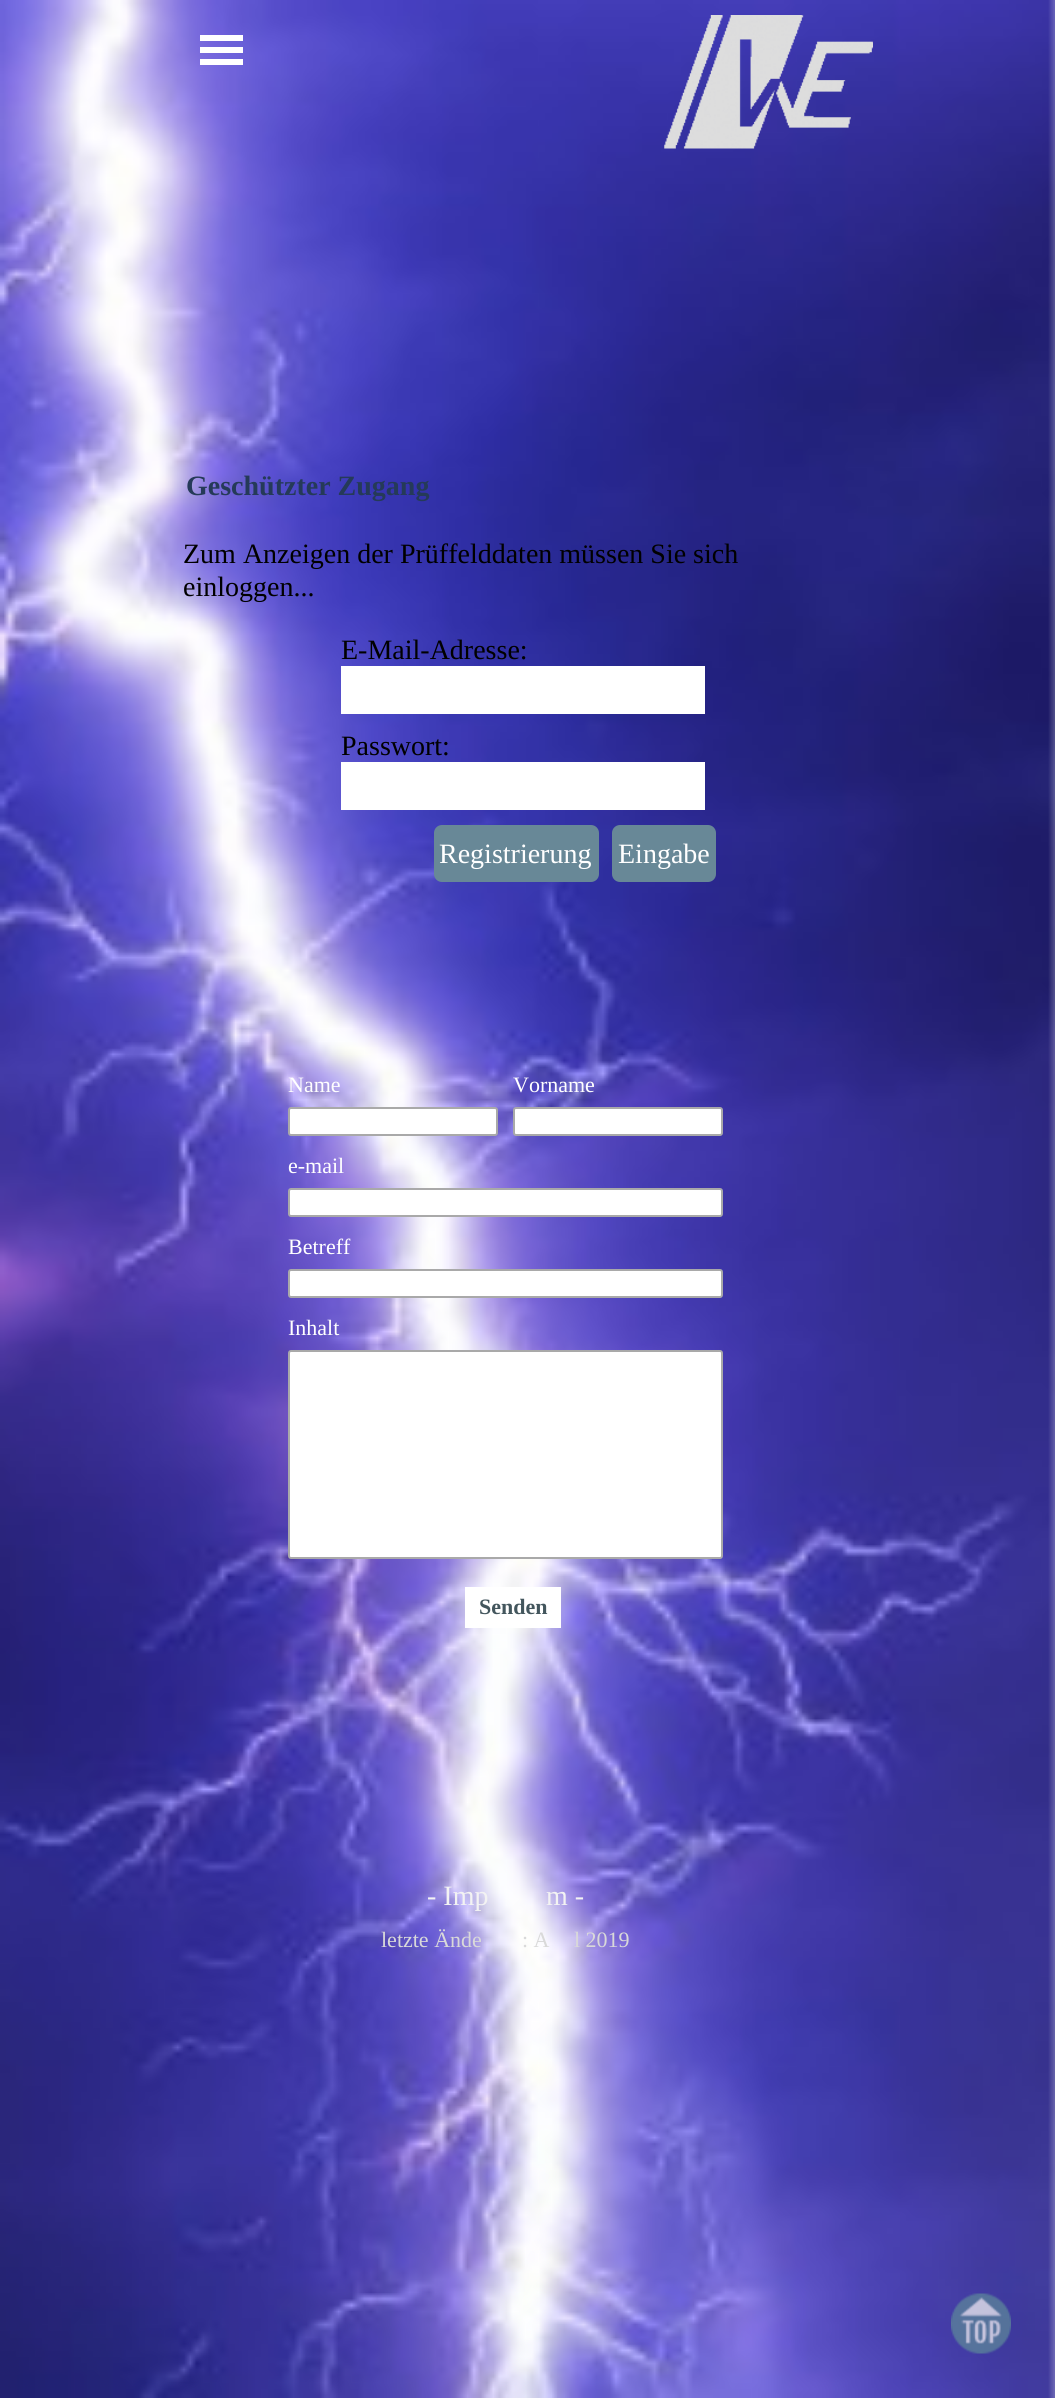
#include <cairo.h>
#include <math.h>
#include <stddef.h>


static void rgb(cairo_t *cr, int r, int g, int b)
{
	cairo_set_source_rgb(cr, r / 255.0, g / 255.0, b / 255.0);
}

static void face(cairo_t *cr, const char *family, double size, int italic, int bold)
{
	cairo_select_font_face(cr, family, italic ? CAIRO_FONT_SLANT_ITALIC : CAIRO_FONT_SLANT_NORMAL,
		bold ? CAIRO_FONT_WEIGHT_BOLD : CAIRO_FONT_WEIGHT_NORMAL);
	cairo_set_font_size(cr, size);
}

static void label(cairo_t *cr, double x, double y, const char *s)
{
	cairo_move_to(cr, x, y);
	cairo_show_text(cr, s);
}

static void rect(cairo_t *cr, double x, double y, double w, double h)
{
	cairo_rectangle(cr, x, y, w, h);
	cairo_fill(cr);
}

static void rrect(cairo_t *cr, double x, double y, double w, double h, double r)
{
	cairo_new_sub_path(cr);
	cairo_arc(cr, x + w - r, y + h - r, r, 0, M_PI / 2);
	cairo_arc(cr, x + r, y + h - r, r, M_PI / 2, M_PI);
	cairo_arc(cr, x + r, y + r, r, M_PI, 1.5 * M_PI);
	cairo_arc(cr, x + w - r, y + r, r, 1.5 * M_PI, 2 * M_PI);
	cairo_close_path(cr);
}

static void image(cairo_t *cr, const char *path, double x, double y, double w, double h)
{
	cairo_surface_t *image = cairo_image_surface_create_from_png(path);
	cairo_save(cr);
	cairo_set_source_surface(cr, image, x, y);
	cairo_rectangle(cr, x, y, w, h);
	cairo_fill(cr);
	cairo_restore(cr);
	cairo_surface_destroy(image);
}

static void draw(cairo_t *cr) {
	rgb(cr, 255, 255, 255);
	cairo_paint(cr);
	image(cr, "image0.png", 0, 0, 1055, 2398);
	rgb(cr, 255, 255, 255);
	rect(cr, 200, 35, 43, 6);
	rect(cr, 200, 47, 43, 6);
	rect(cr, 200, 59, 43, 6);
	image(cr, "image1.png", 664, 15, 209, 134);
	face(cr, "Liberation Serif", 28, 0, 1);
	rgb(cr, 37, 58, 88);
	label(cr, 186, 495, "Geschützter Zugang");
	face(cr, "Liberation Serif", 28, 0, 0);
	rgb(cr, 0, 0, 0);
	label(cr, 183, 563, "Zum Anzeigen der Prüffelddaten müssen Sie sich");
	label(cr, 183, 596, "einloggen...");
	label(cr, 341, 659, "E-Mail-Adresse:");
	rgb(cr, 255, 255, 255);
	rect(cr, 341, 666, 364, 48);
	rgb(cr, 0, 0, 0);
	label(cr, 341, 755, "Passwort:");
	rgb(cr, 255, 255, 255);
	rect(cr, 341, 762, 364, 48);
	rgb(cr, 104, 136, 151);
	rrect(cr, 434, 825, 165, 57, 8);
	cairo_fill(cr);
	rgb(cr, 255, 255, 255);
	label(cr, 439, 863, "Registrierung");
	rgb(cr, 104, 136, 151);
	rrect(cr, 612, 825, 104, 57, 8);
	cairo_fill(cr);
	rgb(cr, 255, 255, 255);
	label(cr, 618, 863, "Eingabe");
	face(cr, "Liberation Serif", 22, 0, 0);
	label(cr, 288, 1092, "Name");
	rrect(cr, 289, 1108, 208, 27, 2);
	cairo_fill_preserve(cr);
	rgb(cr, 169, 169, 169);
	cairo_stroke(cr);
	rgb(cr, 255, 255, 255);
	label(cr, 513, 1092, "Vorname");
	rrect(cr, 514, 1108, 208, 27, 2);
	cairo_fill_preserve(cr);
	rgb(cr, 169, 169, 169);
	cairo_stroke(cr);
	rgb(cr, 255, 255, 255);
	label(cr, 288, 1173, "e-mail");
	rrect(cr, 289, 1189, 433, 27, 2);
	cairo_fill_preserve(cr);
	rgb(cr, 169, 169, 169);
	cairo_stroke(cr);
	rgb(cr, 255, 255, 255);
	label(cr, 288, 1254, "Betreff");
	rrect(cr, 289, 1270, 433, 27, 2);
	cairo_fill_preserve(cr);
	rgb(cr, 169, 169, 169);
	cairo_stroke(cr);
	rgb(cr, 255, 255, 255);
	label(cr, 288, 1335, "Inhalt");
	rrect(cr, 289, 1351, 433, 207, 2);
	cairo_fill_preserve(cr);
	rgb(cr, 169, 169, 169);
	cairo_stroke(cr);
	rgb(cr, 255, 255, 255);
	rect(cr, 465, 1587, 96, 41);
	face(cr, "Liberation Serif", 22, 0, 1);
	rgb(cr, 67, 86, 93);
	label(cr, 479, 1614, "Senden");
	face(cr, "Liberation Serif", 28, 0, 0);
	rgb(cr, 243, 243, 243);
	label(cr, 427, 1905, "- Imp");
	label(cr, 546, 1905, "m -");
	face(cr, "Liberation Serif", 22, 0, 0);
	rgb(cr, 217, 217, 217);
	label(cr, 381, 1947, "letzte Ände");
	label(cr, 522, 1947, ": A");
	label(cr, 574, 1947, "l 2019");
	image(cr, "image2.png", 951, 2293, 60, 61);
}

int main(void) {
	cairo_surface_t *surface = cairo_image_surface_create(CAIRO_FORMAT_RGB24, 1055, 2398);
	cairo_t *cr = cairo_create(surface);
	cairo_font_options_t *options = cairo_font_options_create();
	cairo_font_options_set_hint_metrics(options, CAIRO_HINT_METRICS_OFF);
	cairo_font_options_set_hint_style(options, CAIRO_HINT_STYLE_NONE);
	cairo_set_font_options(cr, options);
	cairo_set_miter_limit(cr, 4);
	draw(cr);
	cairo_surface_write_to_png(surface, "render.png");
	cairo_font_options_destroy(options);
	cairo_destroy(cr);
	cairo_surface_destroy(surface);
	return 0;
}
